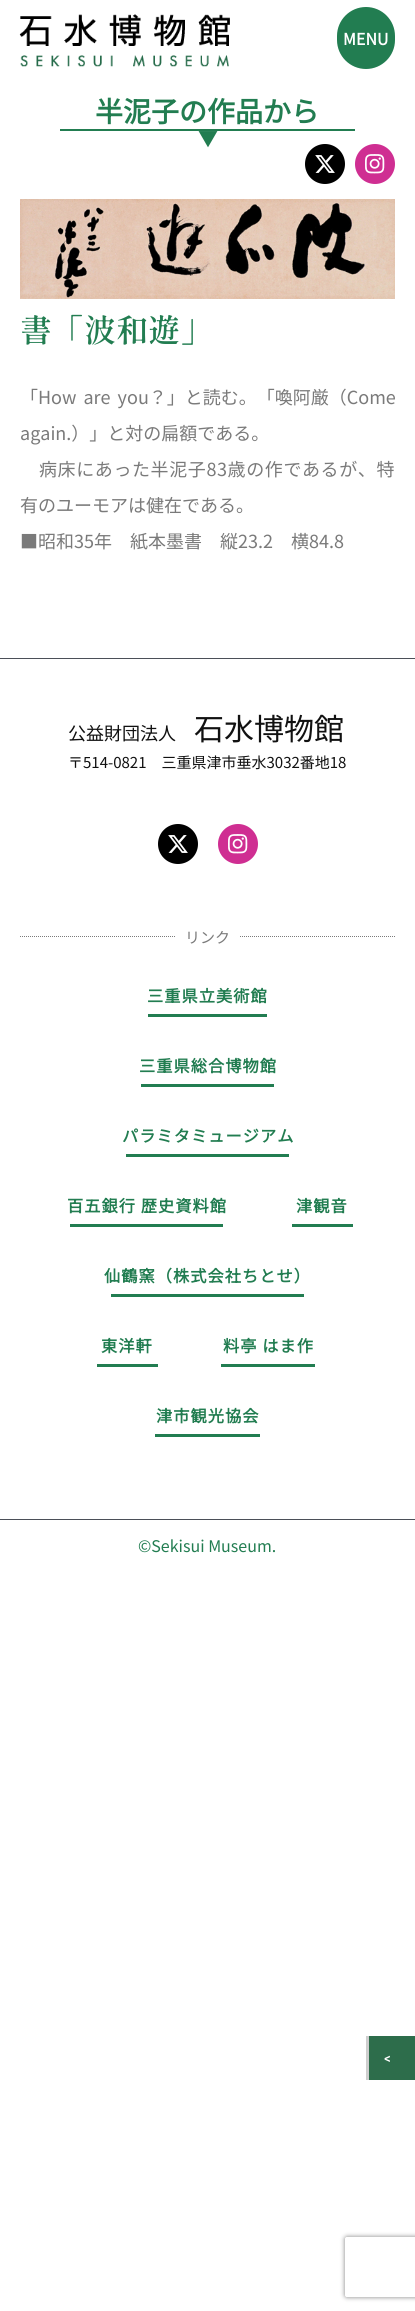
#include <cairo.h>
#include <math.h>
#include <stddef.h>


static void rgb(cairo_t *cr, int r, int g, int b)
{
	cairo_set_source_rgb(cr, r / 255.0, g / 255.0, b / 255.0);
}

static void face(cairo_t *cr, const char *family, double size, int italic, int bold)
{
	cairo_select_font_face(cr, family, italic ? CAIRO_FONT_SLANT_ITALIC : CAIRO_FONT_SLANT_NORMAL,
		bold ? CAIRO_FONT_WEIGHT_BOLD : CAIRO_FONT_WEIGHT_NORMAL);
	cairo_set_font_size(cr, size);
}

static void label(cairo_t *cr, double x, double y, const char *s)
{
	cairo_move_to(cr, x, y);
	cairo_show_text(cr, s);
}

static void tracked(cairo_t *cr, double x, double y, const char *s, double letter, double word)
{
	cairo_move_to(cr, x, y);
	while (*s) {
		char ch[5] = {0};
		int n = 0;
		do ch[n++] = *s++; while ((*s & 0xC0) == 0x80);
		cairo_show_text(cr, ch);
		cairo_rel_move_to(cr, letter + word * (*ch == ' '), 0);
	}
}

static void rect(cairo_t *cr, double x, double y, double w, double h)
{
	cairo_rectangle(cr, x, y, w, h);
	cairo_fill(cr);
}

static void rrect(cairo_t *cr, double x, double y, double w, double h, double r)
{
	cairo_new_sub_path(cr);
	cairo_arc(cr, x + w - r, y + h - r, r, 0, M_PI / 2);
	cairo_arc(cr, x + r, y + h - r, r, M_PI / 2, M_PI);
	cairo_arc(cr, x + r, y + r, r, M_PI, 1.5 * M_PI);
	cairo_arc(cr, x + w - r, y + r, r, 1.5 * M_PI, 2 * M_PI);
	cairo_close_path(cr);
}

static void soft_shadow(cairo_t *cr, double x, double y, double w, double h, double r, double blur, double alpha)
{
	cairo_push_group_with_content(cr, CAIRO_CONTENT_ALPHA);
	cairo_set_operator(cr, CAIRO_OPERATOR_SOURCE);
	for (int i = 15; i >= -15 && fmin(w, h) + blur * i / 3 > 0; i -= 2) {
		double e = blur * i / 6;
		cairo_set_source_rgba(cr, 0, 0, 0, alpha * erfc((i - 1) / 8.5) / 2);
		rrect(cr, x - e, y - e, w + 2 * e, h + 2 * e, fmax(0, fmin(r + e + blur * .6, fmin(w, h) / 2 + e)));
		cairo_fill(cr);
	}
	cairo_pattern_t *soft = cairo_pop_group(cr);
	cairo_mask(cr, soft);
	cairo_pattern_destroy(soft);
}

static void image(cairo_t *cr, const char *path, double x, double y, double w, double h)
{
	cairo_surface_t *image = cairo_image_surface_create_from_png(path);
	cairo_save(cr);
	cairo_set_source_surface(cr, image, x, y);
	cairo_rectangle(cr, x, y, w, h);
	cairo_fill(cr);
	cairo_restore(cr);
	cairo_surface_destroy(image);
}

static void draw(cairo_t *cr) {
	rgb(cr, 255, 255, 255);
	cairo_paint(cr);
	image(cr, "image0.png", 19, 14, 211, 53);
	rgb(cr, 34, 125, 81);
	rrect(cr, 338, 8, 56, 60, 28);
	cairo_fill_preserve(cr);
	cairo_stroke(cr);
	face(cr, "Noto Sans JP", 16, 0, 1);
	rgb(cr, 255, 255, 255);
	label(cr, 343, 45, "MENU");
	rgb(cr, 34, 125, 81);
	rect(cr, 60, 129, 295, 2);
	face(cr, "Noto Sans JP", 28, 0, 1);
	label(cr, 95, 122, "半泥子の作品から");
	face(cr, "Noto Sans JP Thin", 20, 0, 0);
	label(cr, 198, 146, "▼");
	rgb(cr, 0, 0, 0);
	cairo_new_path(cr);
	cairo_arc(cr, 325, 164, 20, 0, 2 * M_PI);
	cairo_fill(cr);
	image(cr, "image1.png", 315, 155, 20, 18);
	rgb(cr, 207, 46, 146);
	cairo_arc(cr, 375, 164, 20, 0, 2 * M_PI);
	cairo_fill(cr);
	image(cr, "image2.png", 365, 154, 20, 20);
	image(cr, "image3.png", 20, 199, 375, 100);
	face(cr, "Shippori Mincho B1 SemiBold", 32, 0, 0);
	rgb(cr, 34, 125, 81);
	label(cr, 20, 342, "書「波和遊」");
	face(cr, "Noto Sans JP Thin", 18, 0, 0);
	rgb(cr, 122, 122, 122);
	tracked(cr, 20, 404, "「How are you？」と読む。「喚阿厳（Come", 0, 3);
	label(cr, 20, 440, "again.）」と対の扁額である。");
	tracked(cr, 39, 476, "病床にあった半泥子83歳の作であるが、特", 0.6, 0);
	label(cr, 20, 512, "有のユーモアは健在である。");
	label(cr, 20, 548, "■昭和35年　紙本墨書　縦23.2　横84.8");
	rgb(cr, 75, 79, 88);
	rect(cr, 0, 658, 415, 1);
	rect(cr, 0, 1519, 415, 1);
	rgb(cr, 17, 17, 17);
	label(cr, 68, 740, "公益財団法人");
	face(cr, "Noto Sans JP Thin", 30, 0, 0);
	label(cr, 194, 740, "石水博物館");
	face(cr, "Noto Sans JP Thin", 15, 0, 0);
	label(cr, 68, 768, "〒514-0821　三重県津市垂水3032番地18");
	rgb(cr, 0, 0, 0);
	cairo_new_path(cr);
	cairo_arc(cr, 178, 844, 20, 0, 2 * M_PI);
	cairo_fill(cr);
	image(cr, "image1.png", 168, 835, 20, 18);
	rgb(cr, 207, 46, 146);
	cairo_arc(cr, 238, 844, 20, 0, 2 * M_PI);
	cairo_fill(cr);
	image(cr, "image2.png", 228, 834, 20, 20);
	cairo_new_path(cr);
	cairo_move_to(cr, 20, 936.5);
	cairo_line_to(cr, 175, 936.5);
	rgb(cr, 122, 122, 122);
	cairo_set_line_width(cr, 1);
	cairo_set_dash(cr, (double[]){1, 1}, 2, 0);
	cairo_stroke(cr);
	label(cr, 185, 943, "リンク");
	cairo_new_path(cr);
	cairo_move_to(cr, 240, 936.5);
	cairo_line_to(cr, 395, 936.5);
	cairo_stroke(cr);
	face(cr, "Noto Sans JP", 16.25, 0, 1);
	rgb(cr, 34, 125, 81);
	tracked(cr, 147, 1002, "三重県立美術館", 1, 0);
	rect(cr, 148, 1014, 119, 3);
	tracked(cr, 139, 1072, "三重県総合博物館", 1, 0);
	rect(cr, 141, 1084, 133, 3);
	tracked(cr, 122, 1142, "パラミタミュージアム", 1, 0);
	rect(cr, 126, 1154, 163, 3);
	tracked(cr, 67, 1212, "百五銀行 歴史資料館", 1, 0);
	rect(cr, 70, 1224, 153, 3);
	tracked(cr, 296, 1212, "津観音", 1, 0);
	rect(cr, 292, 1224, 61, 3);
	tracked(cr, 104, 1282, "仙鶴窯（株式会社ちとせ）", 1, 0);
	rect(cr, 111, 1294, 193, 3);
	tracked(cr, 101, 1352, "東洋軒", 1, 0);
	rect(cr, 97, 1364, 61, 3);
	tracked(cr, 223, 1352, "料亭 はま作", 1, 0);
	rect(cr, 221, 1364, 94, 3);
	tracked(cr, 156, 1422, "津市観光協会", 1, 0);
	rect(cr, 155, 1434, 105, 3);
	face(cr, "Noto Sans JP Thin", 16, 0, 0);
	label(cr, 138, 1552, "©Sekisui Museum.");
	rgb(cr, 45, 109, 75);
	rect(cr, 369, 2036, 46, 44);
	rgb(cr, 206, 206, 206);
	rect(cr, 366, 2036, 3, 44);
	face(cr, "Cabin", 15, 0, 1);
	rgb(cr, 255, 255, 255);
	label(cr, 384, 2063, "<");
	cairo_save(cr);
	cairo_set_fill_rule(cr, CAIRO_FILL_RULE_EVEN_ODD);
	cairo_new_path(cr);
	cairo_move_to(cr, 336, 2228);
	cairo_line_to(cr, 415, 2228);
	cairo_line_to(cr, 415, 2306);
	cairo_line_to(cr, 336, 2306);
	cairo_close_path(cr);
	cairo_move_to(cr, 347, 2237);
	cairo_line_to(cr, 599, 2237);
	cairo_curve_to(cr, 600, 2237, 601, 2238, 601, 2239);
	cairo_line_to(cr, 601, 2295);
	cairo_curve_to(cr, 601, 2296, 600, 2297, 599, 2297);
	cairo_line_to(cr, 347, 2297);
	cairo_curve_to(cr, 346, 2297, 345, 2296, 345, 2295);
	cairo_line_to(cr, 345, 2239);
	cairo_curve_to(cr, 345, 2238, 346, 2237, 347, 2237);
	cairo_close_path(cr);
	cairo_clip(cr);
	rgb(cr, 128, 128, 128);
	soft_shadow(cr, 345, 2237, 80, 60, 2, 2.5, 1);
	cairo_restore(cr);
}

int main(void) {
	cairo_surface_t *surface = cairo_image_surface_create(CAIRO_FORMAT_RGB24, 415, 2311);
	cairo_t *cr = cairo_create(surface);
	cairo_font_options_t *options = cairo_font_options_create();
	cairo_font_options_set_hint_metrics(options, CAIRO_HINT_METRICS_OFF);
	cairo_font_options_set_hint_style(options, CAIRO_HINT_STYLE_NONE);
	cairo_set_font_options(cr, options);
	cairo_set_miter_limit(cr, 4);
	draw(cr);
	cairo_surface_write_to_png(surface, "render.png");
	cairo_font_options_destroy(options);
	cairo_destroy(cr);
	cairo_surface_destroy(surface);
	return 0;
}
